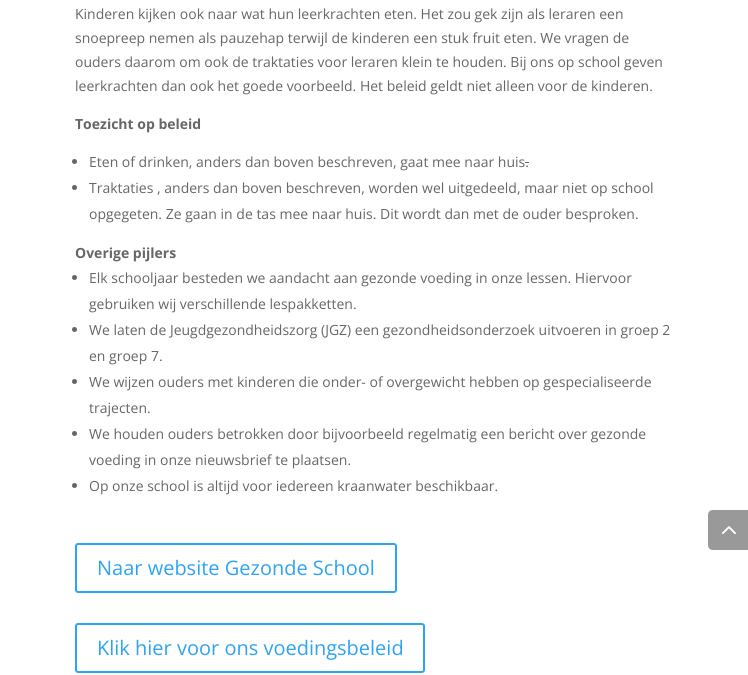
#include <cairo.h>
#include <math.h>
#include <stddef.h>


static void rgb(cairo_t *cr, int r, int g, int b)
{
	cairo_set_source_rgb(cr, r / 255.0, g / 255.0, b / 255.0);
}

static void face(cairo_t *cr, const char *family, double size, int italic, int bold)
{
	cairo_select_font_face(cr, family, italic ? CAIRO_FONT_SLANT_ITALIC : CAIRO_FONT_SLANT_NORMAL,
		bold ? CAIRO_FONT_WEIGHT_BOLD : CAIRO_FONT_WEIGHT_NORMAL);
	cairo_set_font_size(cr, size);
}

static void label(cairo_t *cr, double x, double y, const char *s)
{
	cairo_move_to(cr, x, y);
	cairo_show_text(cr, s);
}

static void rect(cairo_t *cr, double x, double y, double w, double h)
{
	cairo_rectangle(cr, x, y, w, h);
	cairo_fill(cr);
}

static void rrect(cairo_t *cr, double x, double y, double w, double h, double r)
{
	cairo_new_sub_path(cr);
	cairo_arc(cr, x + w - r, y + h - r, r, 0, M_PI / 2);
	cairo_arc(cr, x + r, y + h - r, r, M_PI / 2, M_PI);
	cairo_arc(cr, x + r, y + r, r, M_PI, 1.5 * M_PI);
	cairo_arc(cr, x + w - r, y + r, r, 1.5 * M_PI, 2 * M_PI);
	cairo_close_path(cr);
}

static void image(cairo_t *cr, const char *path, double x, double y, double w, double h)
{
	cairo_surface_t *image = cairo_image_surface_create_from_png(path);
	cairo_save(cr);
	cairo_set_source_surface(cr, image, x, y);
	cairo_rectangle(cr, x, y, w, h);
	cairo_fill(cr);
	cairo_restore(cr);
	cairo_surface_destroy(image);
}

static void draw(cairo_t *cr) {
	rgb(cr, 255, 255, 255);
	cairo_paint(cr);
	face(cr, "Open Sans", 14, 0, 0);
	rgb(cr, 102, 102, 102);
	label(cr, 75, 19, "Kinderen kijken ook naar wat hun leerkrachten eten. Het zou gek zijn als leraren een");
	label(cr, 75, 43, "snoepreep nemen als pauzehap terwijl de kinderen een stuk fruit eten. We vragen de");
	label(cr, 75, 67, "ouders daarom om ook de traktaties voor leraren klein te houden. Bij ons op school geven");
	label(cr, 75, 91, "leerkrachten dan ook het goede voorbeeld. Het beleid geldt niet alleen voor de kinderen.");
	face(cr, "Open Sans", 14, 0, 1);
	label(cr, 75, 129, "Toezicht op beleid");
	cairo_new_path(cr);
	cairo_arc(cr, 74.5, 161.5, 2.5, 0, 2 * M_PI);
	cairo_fill(cr);
	face(cr, "Open Sans", 14, 0, 0);
	label(cr, 89, 167, "Eten of drinken, anders dan boven beschreven, gaat mee naar huis.");
	rect(cr, 525, 162, 4, 1);
	cairo_new_path(cr);
	cairo_arc(cr, 74.5, 187.5, 2.5, 0, 2 * M_PI);
	cairo_fill(cr);
	label(cr, 89, 193, "Traktaties , anders dan boven beschreven, worden wel uitgedeeld, maar niet op school");
	label(cr, 89, 219, "opgegeten. Ze gaan in de tas mee naar huis. Dit wordt dan met de ouder besproken.");
	face(cr, "Open Sans", 14, 0, 1);
	label(cr, 75, 258, "Overige pijlers");
	cairo_new_path(cr);
	cairo_arc(cr, 74.5, 277.5, 2.5, 0, 2 * M_PI);
	cairo_fill(cr);
	face(cr, "Open Sans", 14, 0, 0);
	label(cr, 89, 283, "Elk schooljaar besteden we aandacht aan gezonde voeding in onze lessen. Hiervoor");
	label(cr, 89, 309, "gebruiken wij verschillende lespakketten.");
	cairo_new_path(cr);
	cairo_arc(cr, 74.5, 329.5, 2.5, 0, 2 * M_PI);
	cairo_fill(cr);
	label(cr, 89, 335, "We laten de Jeugdgezondheidszorg (JGZ) een gezondheidsonderzoek uitvoeren in groep 2");
	label(cr, 89, 361, "en groep 7.");
	cairo_new_path(cr);
	cairo_arc(cr, 74.5, 381.5, 2.5, 0, 2 * M_PI);
	cairo_fill(cr);
	label(cr, 89, 387, "We wijzen ouders met kinderen die onder- of overgewicht hebben op gespecialiseerde");
	label(cr, 89, 413, "trajecten.");
	cairo_new_path(cr);
	cairo_arc(cr, 74.5, 433.5, 2.5, 0, 2 * M_PI);
	cairo_fill(cr);
	label(cr, 89, 439, "We houden ouders betrokken door bijvoorbeeld regelmatig een bericht over gezonde");
	label(cr, 89, 465, "voeding in onze nieuwsbrief te plaatsen.");
	cairo_new_path(cr);
	cairo_arc(cr, 74.5, 485.5, 2.5, 0, 2 * M_PI);
	cairo_fill(cr);
	label(cr, 89, 491, "Op onze school is altijd voor iedereen kraanwater beschikbaar.");
	rrect(cr, 76, 544, 320, 48, 2);
	rgb(cr, 46, 163, 242);
	cairo_stroke(cr);
	face(cr, "Open Sans", 20, 0, 0);
	label(cr, 97, 575, "Naar website Gezonde School");
	rrect(cr, 76, 624, 348, 48, 2);
	cairo_stroke(cr);
	label(cr, 97, 655, "Klik hier voor ons voedingsbeleid");
	rgb(cr, 153, 153, 153);
	cairo_new_path(cr);
	cairo_move_to(cr, 713, 510);
	cairo_line_to(cr, 748, 510);
	cairo_line_to(cr, 748, 550);
	cairo_line_to(cr, 713, 550);
	cairo_curve_to(cr, 710, 550, 708, 548, 708, 545);
	cairo_line_to(cr, 708, 515);
	cairo_curve_to(cr, 708, 512, 710, 510, 713, 510);
	cairo_close_path(cr);
	cairo_fill(cr);
	image(cr, "image0.png", 722, 526, 14, 8);
}

int main(void) {
	cairo_surface_t *surface = cairo_image_surface_create(CAIRO_FORMAT_RGB24, 748, 675);
	cairo_t *cr = cairo_create(surface);
	cairo_font_options_t *options = cairo_font_options_create();
	cairo_font_options_set_hint_metrics(options, CAIRO_HINT_METRICS_OFF);
	cairo_font_options_set_hint_style(options, CAIRO_HINT_STYLE_NONE);
	cairo_set_font_options(cr, options);
	cairo_set_miter_limit(cr, 4);
	draw(cr);
	cairo_surface_write_to_png(surface, "render.png");
	cairo_font_options_destroy(options);
	cairo_destroy(cr);
	cairo_surface_destroy(surface);
	return 0;
}
